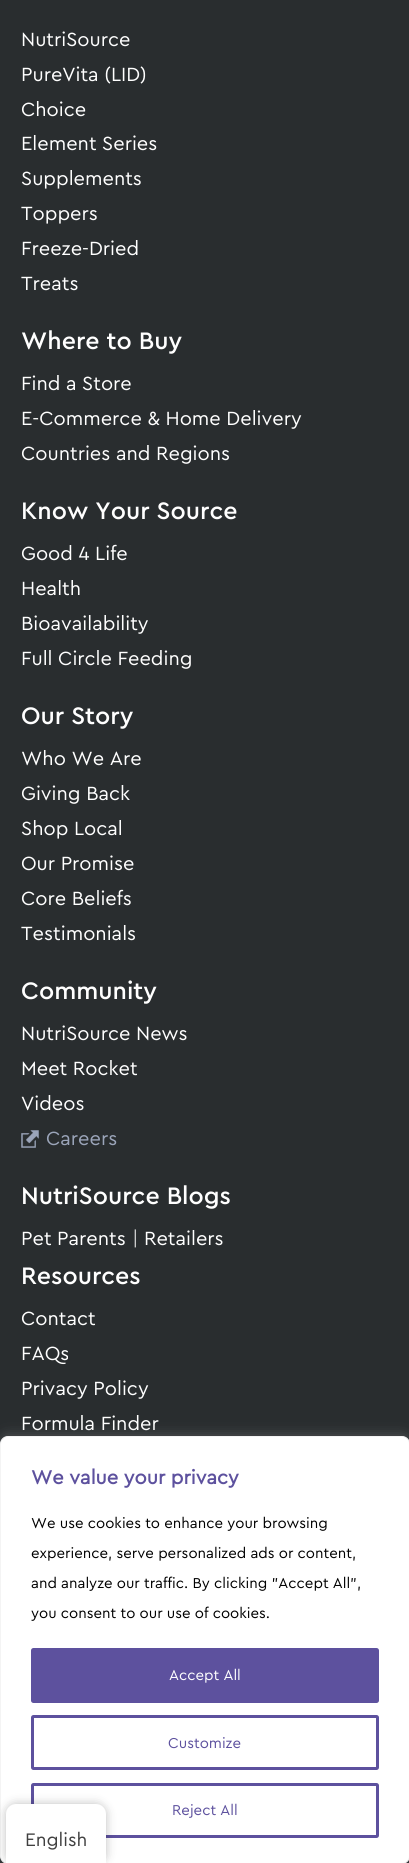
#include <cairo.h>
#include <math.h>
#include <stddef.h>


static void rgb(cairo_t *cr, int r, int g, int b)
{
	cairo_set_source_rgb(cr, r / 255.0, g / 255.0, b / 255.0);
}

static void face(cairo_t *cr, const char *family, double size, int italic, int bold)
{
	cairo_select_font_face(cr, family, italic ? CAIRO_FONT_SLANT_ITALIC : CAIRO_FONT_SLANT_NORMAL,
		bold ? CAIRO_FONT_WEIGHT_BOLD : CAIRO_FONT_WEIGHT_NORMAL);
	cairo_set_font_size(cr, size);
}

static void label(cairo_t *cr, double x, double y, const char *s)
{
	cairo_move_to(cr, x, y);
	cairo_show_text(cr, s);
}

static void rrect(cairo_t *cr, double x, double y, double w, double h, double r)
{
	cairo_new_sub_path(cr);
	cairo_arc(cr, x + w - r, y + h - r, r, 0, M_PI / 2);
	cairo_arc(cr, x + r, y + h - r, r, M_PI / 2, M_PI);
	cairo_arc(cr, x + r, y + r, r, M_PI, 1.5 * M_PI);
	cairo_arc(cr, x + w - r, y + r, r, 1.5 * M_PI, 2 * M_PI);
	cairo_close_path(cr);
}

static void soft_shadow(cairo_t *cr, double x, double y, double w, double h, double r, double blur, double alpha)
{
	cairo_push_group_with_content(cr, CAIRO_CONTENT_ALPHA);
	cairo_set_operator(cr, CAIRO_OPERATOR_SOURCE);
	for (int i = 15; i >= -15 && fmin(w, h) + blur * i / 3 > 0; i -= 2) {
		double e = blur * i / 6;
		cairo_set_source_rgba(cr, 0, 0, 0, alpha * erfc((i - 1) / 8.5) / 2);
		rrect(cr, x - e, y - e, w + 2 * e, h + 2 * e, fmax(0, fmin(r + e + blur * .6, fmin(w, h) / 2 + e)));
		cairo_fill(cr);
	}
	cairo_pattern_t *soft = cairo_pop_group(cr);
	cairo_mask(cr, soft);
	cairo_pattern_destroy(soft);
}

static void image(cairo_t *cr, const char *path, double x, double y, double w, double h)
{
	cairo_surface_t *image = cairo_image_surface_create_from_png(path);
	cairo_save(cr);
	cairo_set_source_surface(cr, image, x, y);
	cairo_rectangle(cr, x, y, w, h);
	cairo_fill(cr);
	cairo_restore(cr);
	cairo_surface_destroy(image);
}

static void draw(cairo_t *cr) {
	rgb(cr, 41, 45, 47);
	cairo_paint(cr);
	face(cr, "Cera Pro", 20, 0, 0);
	rgb(cr, 255, 255, 255);
	label(cr, 21, 46, "NutriSource");
	label(cr, 21, 81, "PureVita (LID)");
	label(cr, 21, 116, "Choice");
	label(cr, 21, 150, "Element Series");
	label(cr, 21, 185, "Supplements");
	label(cr, 21, 220, "Toppers");
	label(cr, 21, 255, "Freeze-Dried");
	label(cr, 21, 290, "Treats");
	face(cr, "Cera Pro Medium", 25, 0, 0);
	label(cr, 21, 349, "Where to Buy");
	face(cr, "Cera Pro", 20, 0, 0);
	label(cr, 21, 390, "Find a Store");
	label(cr, 21, 425, "E-Commerce & Home Delivery");
	label(cr, 21, 460, "Countries and Regions");
	face(cr, "Cera Pro Medium", 25, 0, 0);
	label(cr, 21, 519, "Know Your Source");
	face(cr, "Cera Pro", 20, 0, 0);
	label(cr, 21, 560, "Good 4 Life");
	label(cr, 21, 595, "Health");
	label(cr, 21, 630, "Bioavailability");
	label(cr, 21, 665, "Full Circle Feeding");
	face(cr, "Cera Pro Medium", 25, 0, 0);
	label(cr, 21, 724, "Our Story");
	face(cr, "Cera Pro", 20, 0, 0);
	label(cr, 21, 765, "Who We Are");
	label(cr, 21, 800, "Giving Back");
	label(cr, 21, 835, "Shop Local");
	label(cr, 21, 870, "Our Promise");
	label(cr, 21, 905, "Core Beliefs");
	label(cr, 21, 940, "Testimonials");
	face(cr, "Cera Pro Medium", 25, 0, 0);
	label(cr, 21, 999, "Community");
	face(cr, "Cera Pro", 20, 0, 0);
	label(cr, 21, 1040, "NutriSource News");
	label(cr, 21, 1075, "Meet Rocket");
	label(cr, 21, 1110, "Videos");
	image(cr, "image0.png", 21, 1130, 18, 18);
	rgb(cr, 155, 165, 186);
	label(cr, 46, 1145, "Careers");
	face(cr, "Cera Pro Medium", 25, 0, 0);
	rgb(cr, 255, 255, 255);
	label(cr, 21, 1204, "NutriSource Blogs");
	face(cr, "Cera Pro", 20, 0, 0);
	label(cr, 21, 1245, "Pet Parents");
	rgb(cr, 204, 204, 204);
	label(cr, 132, 1245, "|");
	rgb(cr, 255, 255, 255);
	label(cr, 144, 1245, "Retailers");
	face(cr, "Cera Pro Medium", 25, 0, 0);
	label(cr, 21, 1284, "Resources");
	face(cr, "Cera Pro", 20, 0, 0);
	label(cr, 21, 1325, "Contact");
	label(cr, 21, 1360, "FAQs");
	label(cr, 21, 1395, "Privacy Policy");
	label(cr, 21, 1430, "Formula Finder");
	rgb(cr, 172, 171, 171);
	soft_shadow(cr, 0, 1435, 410, 428, 8, 6, 0.3);
	rgb(cr, 255, 255, 255);
	rrect(cr, 0.5, 1436.5, 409, 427, 7.5);
	cairo_fill_preserve(cr);
	rgb(cr, 244, 244, 244);
	cairo_set_line_width(cr, 1);
	cairo_stroke(cr);
	face(cr, "Cera Pro", 20, 0, 1);
	rgb(cr, 93, 81, 158);
	label(cr, 31, 1484, "We value your privacy");
	face(cr, "Cera Pro", 15, 0, 0);
	rgb(cr, 0, 0, 0);
	label(cr, 31, 1528, "We use cookies to enhance your browsing");
	label(cr, 31, 1558, "experience, serve personalized ads or content,");
	label(cr, 31, 1588, "and analyze our traffic. By clicking \"Accept All\",");
	label(cr, 31, 1618, "you consent to our use of cookies.");
	rgb(cr, 93, 81, 158);
	rrect(cr, 32.5, 1649.5, 345, 52, 1);
	cairo_fill_preserve(cr);
	cairo_set_line_width(cr, 3);
	cairo_stroke(cr);
	rgb(cr, 255, 255, 255);
	label(cr, 169, 1680, "Accept All");
	rrect(cr, 32.5, 1716.5, 345, 52, 1);
	rgb(cr, 93, 81, 158);
	cairo_stroke(cr);
	label(cr, 168, 1748, "Customize");
	rrect(cr, 32.5, 1784.5, 345, 52, 1);
	cairo_stroke(cr);
	label(cr, 172, 1815, "Reject All");
	rgb(cr, 0, 0, 0);
	soft_shadow(cr, 6, 1804, 100, 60, 10, 5, 0.25);
	rgb(cr, 255, 255, 255);
	cairo_new_path(cr);
	cairo_move_to(cr, 16, 1804);
	cairo_line_to(cr, 96, 1804);
	cairo_curve_to(cr, 101.5, 1804, 106, 1808.5, 106, 1814);
	cairo_line_to(cr, 106, 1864);
	cairo_line_to(cr, 6, 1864);
	cairo_line_to(cr, 6, 1814);
	cairo_curve_to(cr, 6, 1808.5, 10.5, 1804, 16, 1804);
	cairo_close_path(cr);
	cairo_fill(cr);
	face(cr, "Cera Pro", 19, 0, 0);
	rgb(cr, 64, 64, 64);
	label(cr, 25, 1846, "English");
}

int main(void) {
	cairo_surface_t *surface = cairo_image_surface_create(CAIRO_FORMAT_RGB24, 409, 1863);
	cairo_t *cr = cairo_create(surface);
	cairo_font_options_t *options = cairo_font_options_create();
	cairo_font_options_set_hint_metrics(options, CAIRO_HINT_METRICS_OFF);
	cairo_font_options_set_hint_style(options, CAIRO_HINT_STYLE_NONE);
	cairo_set_font_options(cr, options);
	cairo_set_miter_limit(cr, 4);
	draw(cr);
	cairo_surface_write_to_png(surface, "render.png");
	cairo_font_options_destroy(options);
	cairo_destroy(cr);
	cairo_surface_destroy(surface);
	return 0;
}
